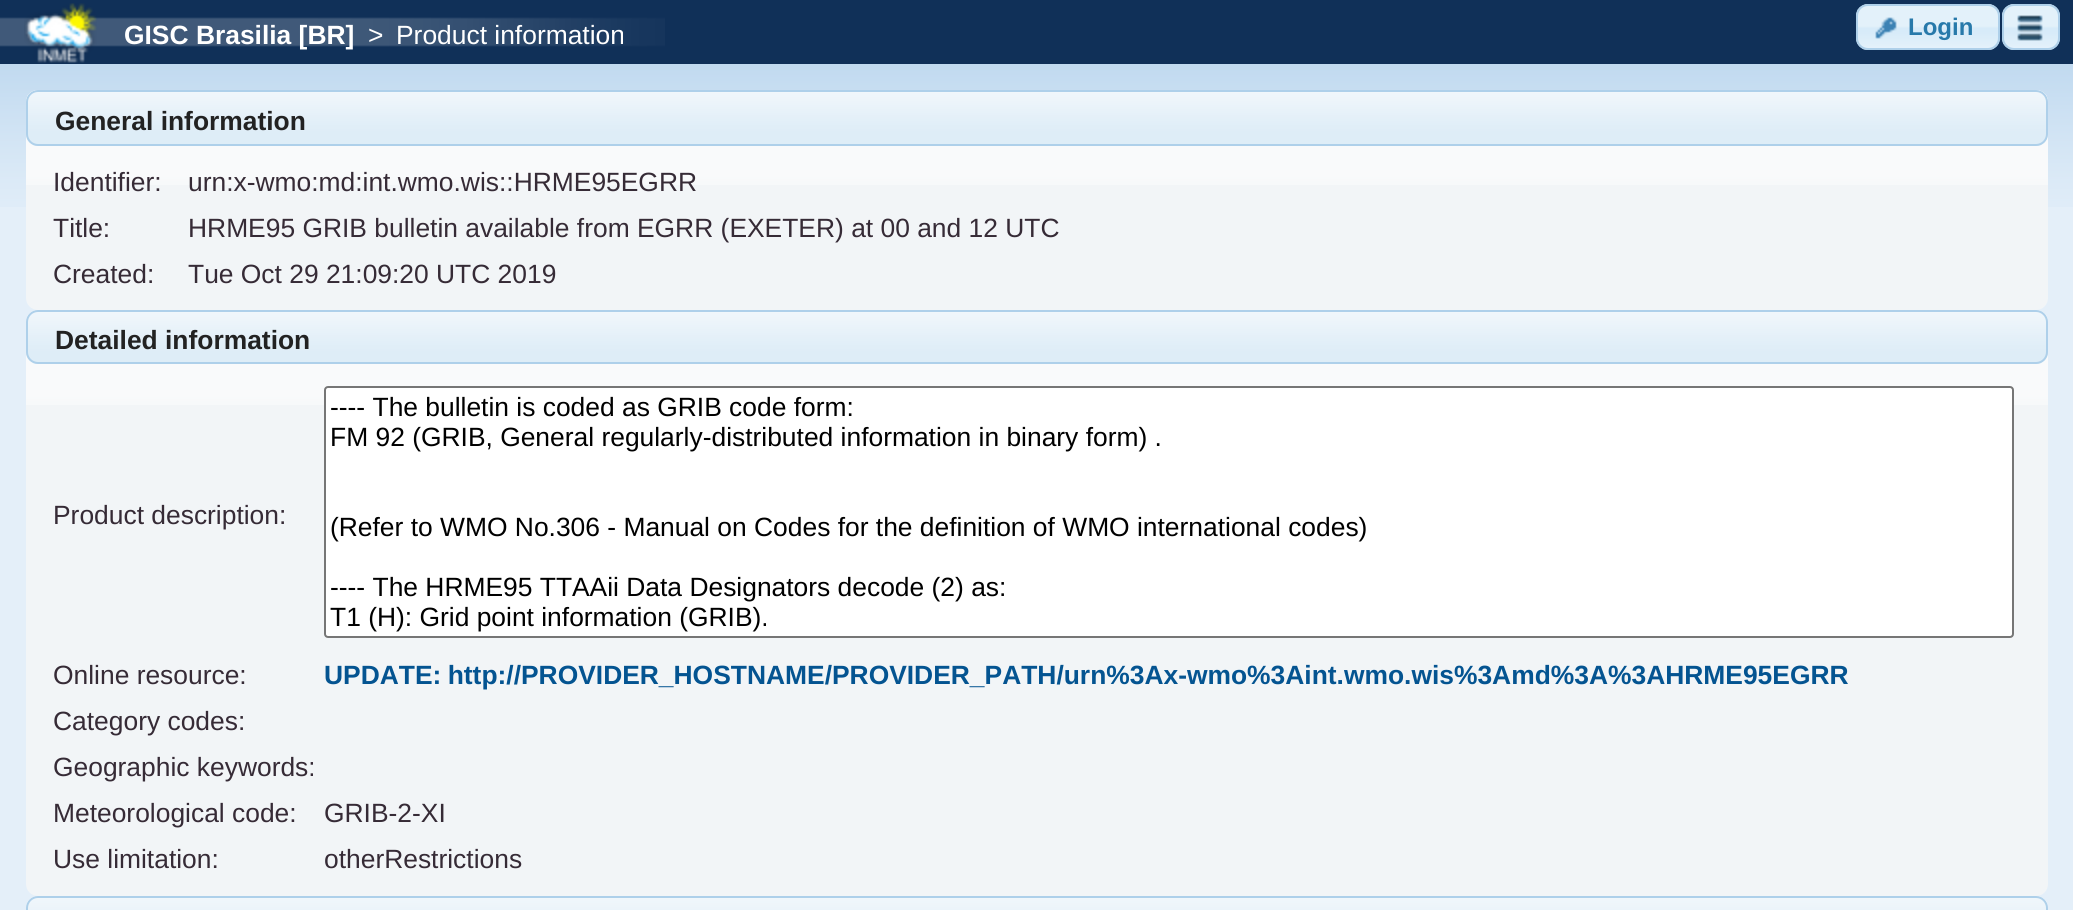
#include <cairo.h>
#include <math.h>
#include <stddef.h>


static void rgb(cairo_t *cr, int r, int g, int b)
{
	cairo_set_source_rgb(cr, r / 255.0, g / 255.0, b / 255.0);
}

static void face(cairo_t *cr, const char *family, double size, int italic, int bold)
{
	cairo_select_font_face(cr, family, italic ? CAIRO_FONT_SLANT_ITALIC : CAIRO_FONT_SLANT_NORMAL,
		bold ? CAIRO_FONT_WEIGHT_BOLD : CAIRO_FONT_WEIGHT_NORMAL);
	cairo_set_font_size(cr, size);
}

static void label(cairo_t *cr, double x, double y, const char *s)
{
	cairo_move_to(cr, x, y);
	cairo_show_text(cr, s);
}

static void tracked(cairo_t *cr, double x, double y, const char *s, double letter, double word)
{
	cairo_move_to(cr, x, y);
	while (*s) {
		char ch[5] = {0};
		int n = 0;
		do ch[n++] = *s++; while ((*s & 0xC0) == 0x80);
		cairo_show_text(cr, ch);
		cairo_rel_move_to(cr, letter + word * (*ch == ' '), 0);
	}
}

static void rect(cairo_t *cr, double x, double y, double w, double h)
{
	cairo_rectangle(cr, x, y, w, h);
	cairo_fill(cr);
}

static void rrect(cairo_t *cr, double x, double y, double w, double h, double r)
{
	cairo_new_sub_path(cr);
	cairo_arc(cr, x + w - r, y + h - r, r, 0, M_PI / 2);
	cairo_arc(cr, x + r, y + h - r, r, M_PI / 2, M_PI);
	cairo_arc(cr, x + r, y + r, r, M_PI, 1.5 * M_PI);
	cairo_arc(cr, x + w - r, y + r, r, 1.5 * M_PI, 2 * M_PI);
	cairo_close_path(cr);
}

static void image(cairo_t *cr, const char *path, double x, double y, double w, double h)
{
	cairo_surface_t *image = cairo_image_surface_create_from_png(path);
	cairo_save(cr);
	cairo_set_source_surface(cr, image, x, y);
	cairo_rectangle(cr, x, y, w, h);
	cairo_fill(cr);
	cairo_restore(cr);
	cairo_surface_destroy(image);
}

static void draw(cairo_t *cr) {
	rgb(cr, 228, 239, 249);
	cairo_paint(cr);
	image(cr, "image0.png", 0, 64, 2073, 143);
	rgb(cr, 16, 48, 88);
	rect(cr, 0, 0, 2073, 64);
	image(cr, "image1.png", 0, 17, 665, 30);
	image(cr, "image2.png", 24, 3, 73, 60);
	face(cr, "Liberation Sans", 26.4, 0, 1);
	rgb(cr, 255, 255, 255);
	label(cr, 124, 44, "GISC Brasilia [BR]");
	face(cr, "Liberation Sans", 26.4, 0, 0);
	label(cr, 368, 44, ">");
	label(cr, 396, 44, "Product information");
	image(cr, "image3.png", 1856, 4, 144, 46);
	rrect(cr, 1857, 5, 142, 44, 11);
	rgb(cr, 174, 208, 234);
	cairo_stroke(cr);
	image(cr, "image4.png", 1875, 17, 22, 22);
	face(cr, "Liberation Sans", 24, 0, 1);
	rgb(cr, 39, 121, 170);
	label(cr, 1908, 35, "Login");
	image(cr, "image5.png", 2002, 4, 58, 46);
	rrect(cr, 2003, 5, 56, 44, 11);
	rgb(cr, 174, 208, 234);
	cairo_stroke(cr);
	image(cr, "image6.png", 2017, 15, 26, 26);
	rgb(cr, 242, 245, 247);
	rrect(cr, 26, 90, 2022, 220, 12);
	cairo_fill(cr);
	image(cr, "image7.png", 26, 90, 2022, 95);
	image(cr, "image8.png", 26, 90, 2022, 56);
	rrect(cr, 27, 91, 2020, 54, 11);
	rgb(cr, 174, 208, 234);
	cairo_stroke(cr);
	face(cr, "Liberation Sans", 26.4, 0, 1);
	rgb(cr, 34, 34, 34);
	label(cr, 55, 130, "General information");
	face(cr, "Liberation Sans", 26.4, 0, 0);
	rgb(cr, 54, 43, 54);
	label(cr, 53, 191, "Identifier:");
	label(cr, 188, 191, "urn:x-wmo:md:int.wmo.wis::HRME95EGRR");
	label(cr, 53, 237, "Title:");
	label(cr, 188, 237, "HRME95 GRIB bulletin available from EGRR (EXETER) at 00 and 12 UTC");
	label(cr, 53, 283, "Created:");
	label(cr, 188, 283, "Tue Oct 29 21:09:20 UTC 2019");
	rgb(cr, 242, 245, 247);
	rrect(cr, 26, 310, 2022, 586, 12);
	cairo_fill(cr);
	image(cr, "image9.png", 26, 310, 2022, 95);
	image(cr, "image10.png", 26, 310, 2022, 54);
	rrect(cr, 27, 311, 2020, 52, 11);
	rgb(cr, 174, 208, 234);
	cairo_stroke(cr);
	face(cr, "Liberation Sans", 26.4, 0, 1);
	rgb(cr, 34, 34, 34);
	label(cr, 55, 349, "Detailed information");
	face(cr, "Liberation Sans", 26.4, 0, 0);
	rgb(cr, 54, 43, 54);
	label(cr, 53, 524, "Product description:");
	rgb(cr, 255, 255, 255);
	rrect(cr, 325, 387, 1688, 250, 3);
	cairo_fill_preserve(cr);
	rgb(cr, 118, 118, 118);
	cairo_stroke(cr);
	rgb(cr, 0, 0, 0);
	label(cr, 330, 416, "---- The bulletin is coded as GRIB code form:");
	label(cr, 330, 446, "FM 92 (GRIB, General regularly-distributed information in binary form) .");
	label(cr, 330, 536, "(Refer to WMO No.306 - Manual on Codes for the definition of WMO international codes)");
	label(cr, 330, 596, "---- The HRME95 TTAAii Data Designators decode (2) as:");
	label(cr, 330, 626, "T1 (H): Grid point information (GRIB).");
	rgb(cr, 54, 43, 54);
	label(cr, 53, 684, "Online resource:");
	face(cr, "Liberation Sans", 26.4, 0, 1);
	rgb(cr, 4, 84, 145);
	tracked(cr, 324, 684, "UPDATE: http://PROVIDER_HOSTNAME/PROVIDER_PATH/urn%3Ax-wmo%3Aint.wmo.wis%3Amd%3A%3AHRME95EGRR", 0, -1);
	face(cr, "Liberation Sans", 26.4, 0, 0);
	rgb(cr, 54, 43, 54);
	label(cr, 53, 730, "Category codes:");
	label(cr, 53, 776, "Geographic keywords:");
	label(cr, 53, 822, "Meteorological code:");
	label(cr, 324, 822, "GRIB-2-XI");
	label(cr, 53, 868, "Use limitation:");
	label(cr, 324, 868, "otherRestrictions");
	image(cr, "image11.png", 26, 896, 2022, 12);
	image(cr, "image12.png", 26, 896, 2022, 14);
	rrect(cr, 27, 897, 2020, 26, 11);
	rgb(cr, 174, 208, 234);
	cairo_stroke(cr);
}

int main(void) {
	cairo_surface_t *surface = cairo_image_surface_create(CAIRO_FORMAT_RGB24, 2073, 910);
	cairo_t *cr = cairo_create(surface);
	cairo_font_options_t *options = cairo_font_options_create();
	cairo_font_options_set_hint_metrics(options, CAIRO_HINT_METRICS_OFF);
	cairo_font_options_set_hint_style(options, CAIRO_HINT_STYLE_NONE);
	cairo_set_font_options(cr, options);
	cairo_set_miter_limit(cr, 4);
	draw(cr);
	cairo_surface_write_to_png(surface, "render.png");
	cairo_font_options_destroy(options);
	cairo_destroy(cr);
	cairo_surface_destroy(surface);
	return 0;
}
